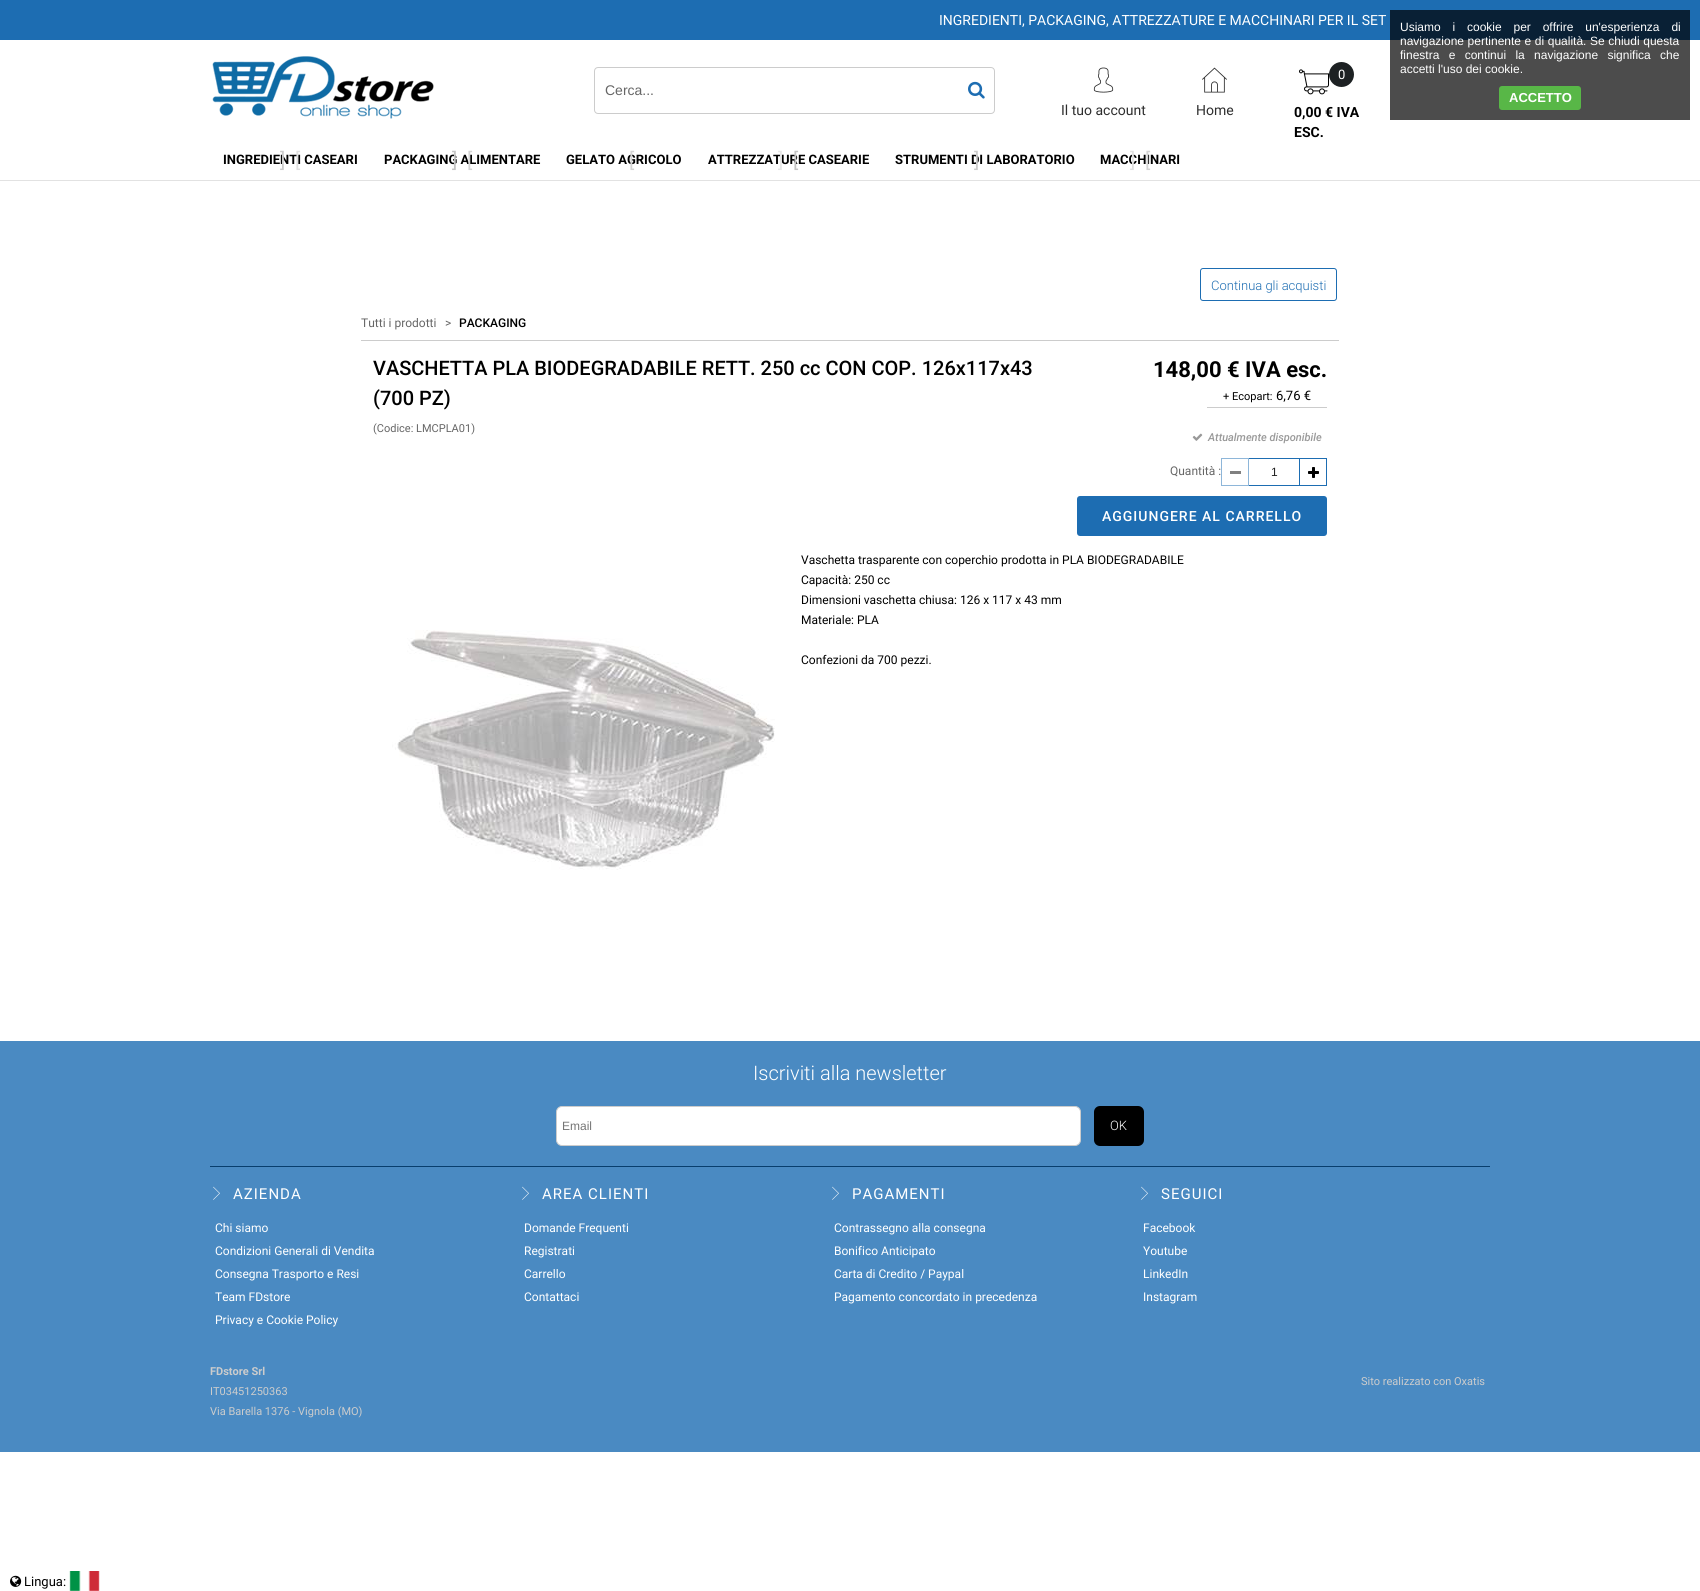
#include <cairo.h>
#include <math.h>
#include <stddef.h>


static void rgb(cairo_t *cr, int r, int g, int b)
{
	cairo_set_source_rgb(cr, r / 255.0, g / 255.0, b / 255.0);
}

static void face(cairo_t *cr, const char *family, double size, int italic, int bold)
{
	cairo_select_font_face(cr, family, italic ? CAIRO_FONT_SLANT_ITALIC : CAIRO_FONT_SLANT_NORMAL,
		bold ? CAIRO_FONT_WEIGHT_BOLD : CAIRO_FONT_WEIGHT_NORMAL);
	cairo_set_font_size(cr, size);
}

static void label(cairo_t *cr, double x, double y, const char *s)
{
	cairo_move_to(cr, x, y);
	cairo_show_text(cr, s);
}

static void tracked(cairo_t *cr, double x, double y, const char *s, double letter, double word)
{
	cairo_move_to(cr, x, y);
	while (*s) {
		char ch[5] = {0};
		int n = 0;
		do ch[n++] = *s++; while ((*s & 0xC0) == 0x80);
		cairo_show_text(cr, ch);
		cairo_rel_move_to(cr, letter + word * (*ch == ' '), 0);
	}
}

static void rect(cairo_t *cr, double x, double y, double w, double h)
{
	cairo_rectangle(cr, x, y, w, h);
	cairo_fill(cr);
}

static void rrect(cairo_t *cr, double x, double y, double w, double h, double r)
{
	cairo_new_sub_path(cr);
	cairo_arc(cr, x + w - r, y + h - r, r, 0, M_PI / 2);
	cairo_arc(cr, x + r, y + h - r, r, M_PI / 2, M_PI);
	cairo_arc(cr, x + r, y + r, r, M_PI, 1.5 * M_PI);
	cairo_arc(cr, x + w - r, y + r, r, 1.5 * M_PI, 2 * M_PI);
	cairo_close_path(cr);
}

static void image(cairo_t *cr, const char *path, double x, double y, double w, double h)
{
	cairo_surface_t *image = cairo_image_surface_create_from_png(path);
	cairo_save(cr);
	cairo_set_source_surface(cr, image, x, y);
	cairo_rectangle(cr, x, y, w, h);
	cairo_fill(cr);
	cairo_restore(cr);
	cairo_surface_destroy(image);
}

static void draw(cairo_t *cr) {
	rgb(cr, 255, 255, 255);
	cairo_paint(cr);
	rgb(cr, 29, 109, 178);
	rect(cr, 0, 0, 1700, 40);
	rgb(cr, 226, 226, 226);
	rect(cr, 0, 180, 1700, 1);
	face(cr, "Roboto", 14, 0, 0);
	rgb(cr, 255, 255, 255);
	label(cr, 939, 25, "INGREDIENTI, PACKAGING, ATTREZZATURE E MACCHINARI PER IL SET");
	image(cr, "image0.png", 212, 56, 222, 63);
	rrect(cr, 594.5, 67.5, 400, 46, 3.5);
	rgb(cr, 204, 204, 204);
	cairo_set_line_width(cr, 1);
	cairo_stroke(cr);
	face(cr, "Liberation Sans", 14, 0, 0);
	rgb(cr, 102, 102, 102);
	label(cr, 605, 95, "Cerca...");
	image(cr, "image1.png", 968, 81, 17, 18);
	image(cr, "image2.png", 1093, 67, 21, 26);
	face(cr, "Roboto", 14, 0, 0);
	rgb(cr, 46, 46, 46);
	label(cr, 1061, 115, "Il tuo account");
	image(cr, "image3.png", 1202, 67, 25, 26);
	label(cr, 1196, 115, "Home");
	image(cr, "image4.png", 1299, 69, 30, 26);
	rgb(cr, 29, 33, 35);
	cairo_arc(cr, 1341.5, 74.5, 12.5, 0, 2 * M_PI);
	cairo_fill(cr);
	face(cr, "Roboto", 13, 0, 0);
	rgb(cr, 255, 255, 255);
	label(cr, 1338, 79, "0");
	face(cr, "Roboto", 14, 0, 1);
	rgb(cr, 0, 0, 0);
	label(cr, 1294, 117, "0,00 € IVA");
	label(cr, 1294, 137, "ESC.");
	face(cr, "Roboto", 13, 0, 1);
	label(cr, 223, 164, "INGREDIENTI CASEARI");
	face(cr, "Roboto", 20, 0, 0);
	rgb(cr, 204, 204, 204);
	label(cr, 280, 167, "]");
	rgb(cr, 224, 224, 224);
	label(cr, 295, 167, "[");
	face(cr, "Roboto", 13, 0, 1);
	rgb(cr, 0, 0, 0);
	label(cr, 384, 164, "PACKAGING ALIMENTARE");
	face(cr, "Roboto", 20, 0, 0);
	rgb(cr, 196, 196, 196);
	label(cr, 452, 167, "]");
	rgb(cr, 212, 212, 212);
	label(cr, 467, 167, "[");
	face(cr, "Roboto", 13, 0, 1);
	rgb(cr, 0, 0, 0);
	label(cr, 566, 164, "GELATO AGRICOLO");
	face(cr, "Roboto", 20, 0, 0);
	rgb(cr, 212, 212, 212);
	label(cr, 629, 167, "[");
	face(cr, "Roboto", 13, 0, 1);
	rgb(cr, 0, 0, 0);
	label(cr, 708, 164, "ATTREZZATURE CASEARIE");
	face(cr, "Roboto", 20, 0, 0);
	rgb(cr, 230, 230, 230);
	label(cr, 778, 167, "]");
	rgb(cr, 196, 196, 196);
	label(cr, 793, 167, "[");
	face(cr, "Roboto", 13, 0, 1);
	rgb(cr, 0, 0, 0);
	label(cr, 895, 164, "STRUMENTI DI LABORATORIO");
	face(cr, "Roboto", 20, 0, 0);
	rgb(cr, 204, 204, 204);
	label(cr, 974, 167, "]");
	face(cr, "Roboto", 13, 0, 1);
	rgb(cr, 0, 0, 0);
	label(cr, 1100, 164, "MACCHINARI");
	face(cr, "Roboto", 20, 0, 0);
	rgb(cr, 224, 224, 224);
	label(cr, 1130, 167, "]");
	rgb(cr, 212, 212, 212);
	label(cr, 1145, 167, "[");
	rrect(cr, 1200.5, 268.5, 136, 32, 2.5);
	rgb(cr, 29, 109, 178);
	cairo_stroke(cr);
	face(cr, "Roboto Light", 13, 0, 0);
	label(cr, 1211, 290, "Continua gli acquisti");
	face(cr, "Roboto", 12, 0, 0);
	rgb(cr, 102, 102, 102);
	label(cr, 361, 327, "Tutti i prodotti");
	label(cr, 445, 327, ">");
	face(cr, "Roboto Medium", 12, 0, 0);
	rgb(cr, 0, 0, 0);
	label(cr, 459, 327, "PACKAGING");
	rgb(cr, 204, 204, 204);
	rect(cr, 361, 340, 978, 1);
	face(cr, "Roboto Medium", 20, 0, 0);
	rgb(cr, 0, 0, 0);
	label(cr, 373, 375, "VASCHETTA PLA BIODEGRADABILE RETT. 250 cc CON COP. 126x117x43");
	label(cr, 373, 405, "(700 PZ)");
	face(cr, "Roboto", 11, 0, 0);
	rgb(cr, 102, 102, 102);
	label(cr, 373, 432, "(Codice: LMCPLA01)");
	face(cr, "Roboto", 22, 0, 1);
	rgb(cr, 0, 0, 0);
	label(cr, 1153, 377, "148,00 € IVA esc.");
	rgb(cr, 204, 204, 204);
	rect(cr, 1207, 407, 120, 1);
	face(cr, "Roboto", 11, 0, 0);
	rgb(cr, 0, 0, 0);
	label(cr, 1223, 400, "+ Ecopart:");
	face(cr, "Roboto", 13, 0, 0);
	label(cr, 1276, 400, "6,76 €");
	image(cr, "image5.png", 1192, 433, 11, 8);
	face(cr, "Roboto Medium", 11, 1, 0);
	rgb(cr, 153, 153, 153);
	label(cr, 1208, 441, "Attualmente disponibile");
	face(cr, "Roboto", 12, 0, 0);
	rgb(cr, 102, 102, 102);
	label(cr, 1170, 475, "Quantità :");
	cairo_rectangle(cr, 1221.5, 458.5, 27, 27);
	rgb(cr, 142, 182, 217);
	cairo_stroke(cr);
	rgb(cr, 128, 128, 128);
	rect(cr, 1230, 471, 11, 3);
	rgb(cr, 29, 109, 178);
	rect(cr, 1249, 458, 50, 1);
	rect(cr, 1249, 485, 50, 1);
	face(cr, "Liberation Sans", 12, 0, 0);
	rgb(cr, 33, 33, 33);
	label(cr, 1271, 476, "1");
	cairo_rectangle(cr, 1299.5, 458.5, 27, 27);
	rgb(cr, 29, 109, 178);
	cairo_stroke(cr);
	image(cr, "image6.png", 1308, 467, 11, 11);
	rrect(cr, 1077, 496, 250, 40, 3);
	cairo_fill(cr);
	face(cr, "Roboto Medium", 14, 0, 0);
	rgb(cr, 255, 255, 255);
	tracked(cr, 1102, 521, "AGGIUNGERE AL CARRELLO", 1, 0);
	face(cr, "Roboto", 12, 0, 0);
	rgb(cr, 0, 0, 0);
	label(cr, 801, 564, "Vaschetta trasparente con coperchio prodotta in PLA BIODEGRADABILE");
	label(cr, 801, 584, "Capacità: 250 cc");
	label(cr, 801, 604, "Dimensioni vaschetta chiusa: 126 x 117 x 43 mm");
	label(cr, 801, 624, "Materiale: PLA");
	label(cr, 801, 664, "Confezioni da 700 pezzi.");
	image(cr, "image7.png", 392, 630, 383, 240);
	rgb(cr, 74, 138, 194);
	rect(cr, 0, 1041, 1700, 411);
	rgb(cr, 8, 62, 109);
	rect(cr, 210, 1166, 1280, 1);
	face(cr, "Roboto Light", 20, 0, 0);
	rgb(cr, 255, 255, 255);
	label(cr, 753, 1080, "Iscriviti alla newsletter");
	rrect(cr, 556.5, 1106.5, 524, 39, 5.5);
	cairo_fill_preserve(cr);
	rgb(cr, 204, 204, 204);
	cairo_stroke(cr);
	face(cr, "Liberation Sans", 12, 0, 0);
	rgb(cr, 117, 117, 117);
	label(cr, 562, 1130, "Email");
	rgb(cr, 0, 0, 0);
	rrect(cr, 1094, 1106, 50, 40, 6);
	cairo_fill(cr);
	face(cr, "Roboto Light", 13, 0, 0);
	rgb(cr, 255, 255, 255);
	label(cr, 1110, 1130, "OK");
	image(cr, "image8.png", 213, 1186, 7, 14);
	face(cr, "Roboto", 15, 0, 0);
	tracked(cr, 233, 1199, "AZIENDA", 1, 0);
	image(cr, "image8.png", 522, 1186, 7, 14);
	tracked(cr, 542, 1199, "AREA CLIENTI", 1, 0);
	image(cr, "image8.png", 832, 1186, 7, 14);
	tracked(cr, 852, 1199, "PAGAMENTI", 1, 0);
	image(cr, "image8.png", 1141, 1186, 7, 14);
	tracked(cr, 1161, 1199, "SEGUICI", 1, 0);
	face(cr, "Roboto", 12, 0, 0);
	label(cr, 215, 1232, "Chi siamo");
	label(cr, 524, 1232, "Domande Frequenti");
	label(cr, 834, 1232, "Contrassegno alla consegna");
	label(cr, 1143, 1232, "Facebook");
	label(cr, 215, 1255, "Condizioni Generali di Vendita");
	label(cr, 524, 1255, "Registrati");
	label(cr, 834, 1255, "Bonifico Anticipato");
	label(cr, 1143, 1255, "Youtube");
	label(cr, 215, 1278, "Consegna Trasporto e Resi");
	label(cr, 524, 1278, "Carrello");
	label(cr, 834, 1278, "Carta di Credito / Paypal");
	label(cr, 1143, 1278, "LinkedIn");
	label(cr, 215, 1301, "Team FDstore");
	label(cr, 524, 1301, "Contattaci");
	label(cr, 834, 1301, "Pagamento concordato in precedenza");
	label(cr, 1143, 1301, "Instagram");
	label(cr, 215, 1324, "Privacy e Cookie Policy");
	face(cr, "Roboto", 11, 0, 1);
	rgb(cr, 204, 204, 204);
	label(cr, 210, 1375, "FDstore Srl");
	face(cr, "Roboto", 11, 0, 0);
	label(cr, 210, 1395, "IT03451250363");
	label(cr, 210, 1415, "Via Barella 1376 - Vignola (MO)");
	label(cr, 1361, 1385, "Sito realizzato con Oxatis");
	image(cr, "image9.png", 10, 1575, 12, 12);
	face(cr, "Roboto", 13, 0, 0);
	rgb(cr, 0, 0, 0);
	label(cr, 24, 1586, "Lingua:");
	image(cr, "image10.png", 69, 1571, 31, 20);
	cairo_set_source_rgba(cr, 0, 0, 0, 0.7);
	rect(cr, 1390, 10, 300, 110);
	face(cr, "Liberation Sans", 12, 0, 0);
	rgb(cr, 255, 255, 255);
	tracked(cr, 1400, 31, "Usiamo i cookie per offrire un'esperienza di", 0, 8.5);
	tracked(cr, 1400, 45, "navigazione pertinente e di qualità. Se chiudi questa", 0, 0.25);
	tracked(cr, 1400, 59, "finestra e continui la navigazione significa che", 0, 6);
	label(cr, 1400, 73, "accetti l'uso dei cookie.");
	rgb(cr, 88, 183, 71);
	rrect(cr, 1499, 86, 82, 24, 3);
	cairo_fill(cr);
	face(cr, "Liberation Sans", 13, 0, 1);
	rgb(cr, 255, 255, 255);
	label(cr, 1509, 102, "ACCETTO");
}

int main(void) {
	cairo_surface_t *surface = cairo_image_surface_create(CAIRO_FORMAT_RGB24, 1700, 1591);
	cairo_t *cr = cairo_create(surface);
	cairo_font_options_t *options = cairo_font_options_create();
	cairo_font_options_set_hint_metrics(options, CAIRO_HINT_METRICS_OFF);
	cairo_font_options_set_hint_style(options, CAIRO_HINT_STYLE_NONE);
	cairo_set_font_options(cr, options);
	cairo_set_miter_limit(cr, 4);
	draw(cr);
	cairo_surface_write_to_png(surface, "render.png");
	cairo_font_options_destroy(options);
	cairo_destroy(cr);
	cairo_surface_destroy(surface);
	return 0;
}
